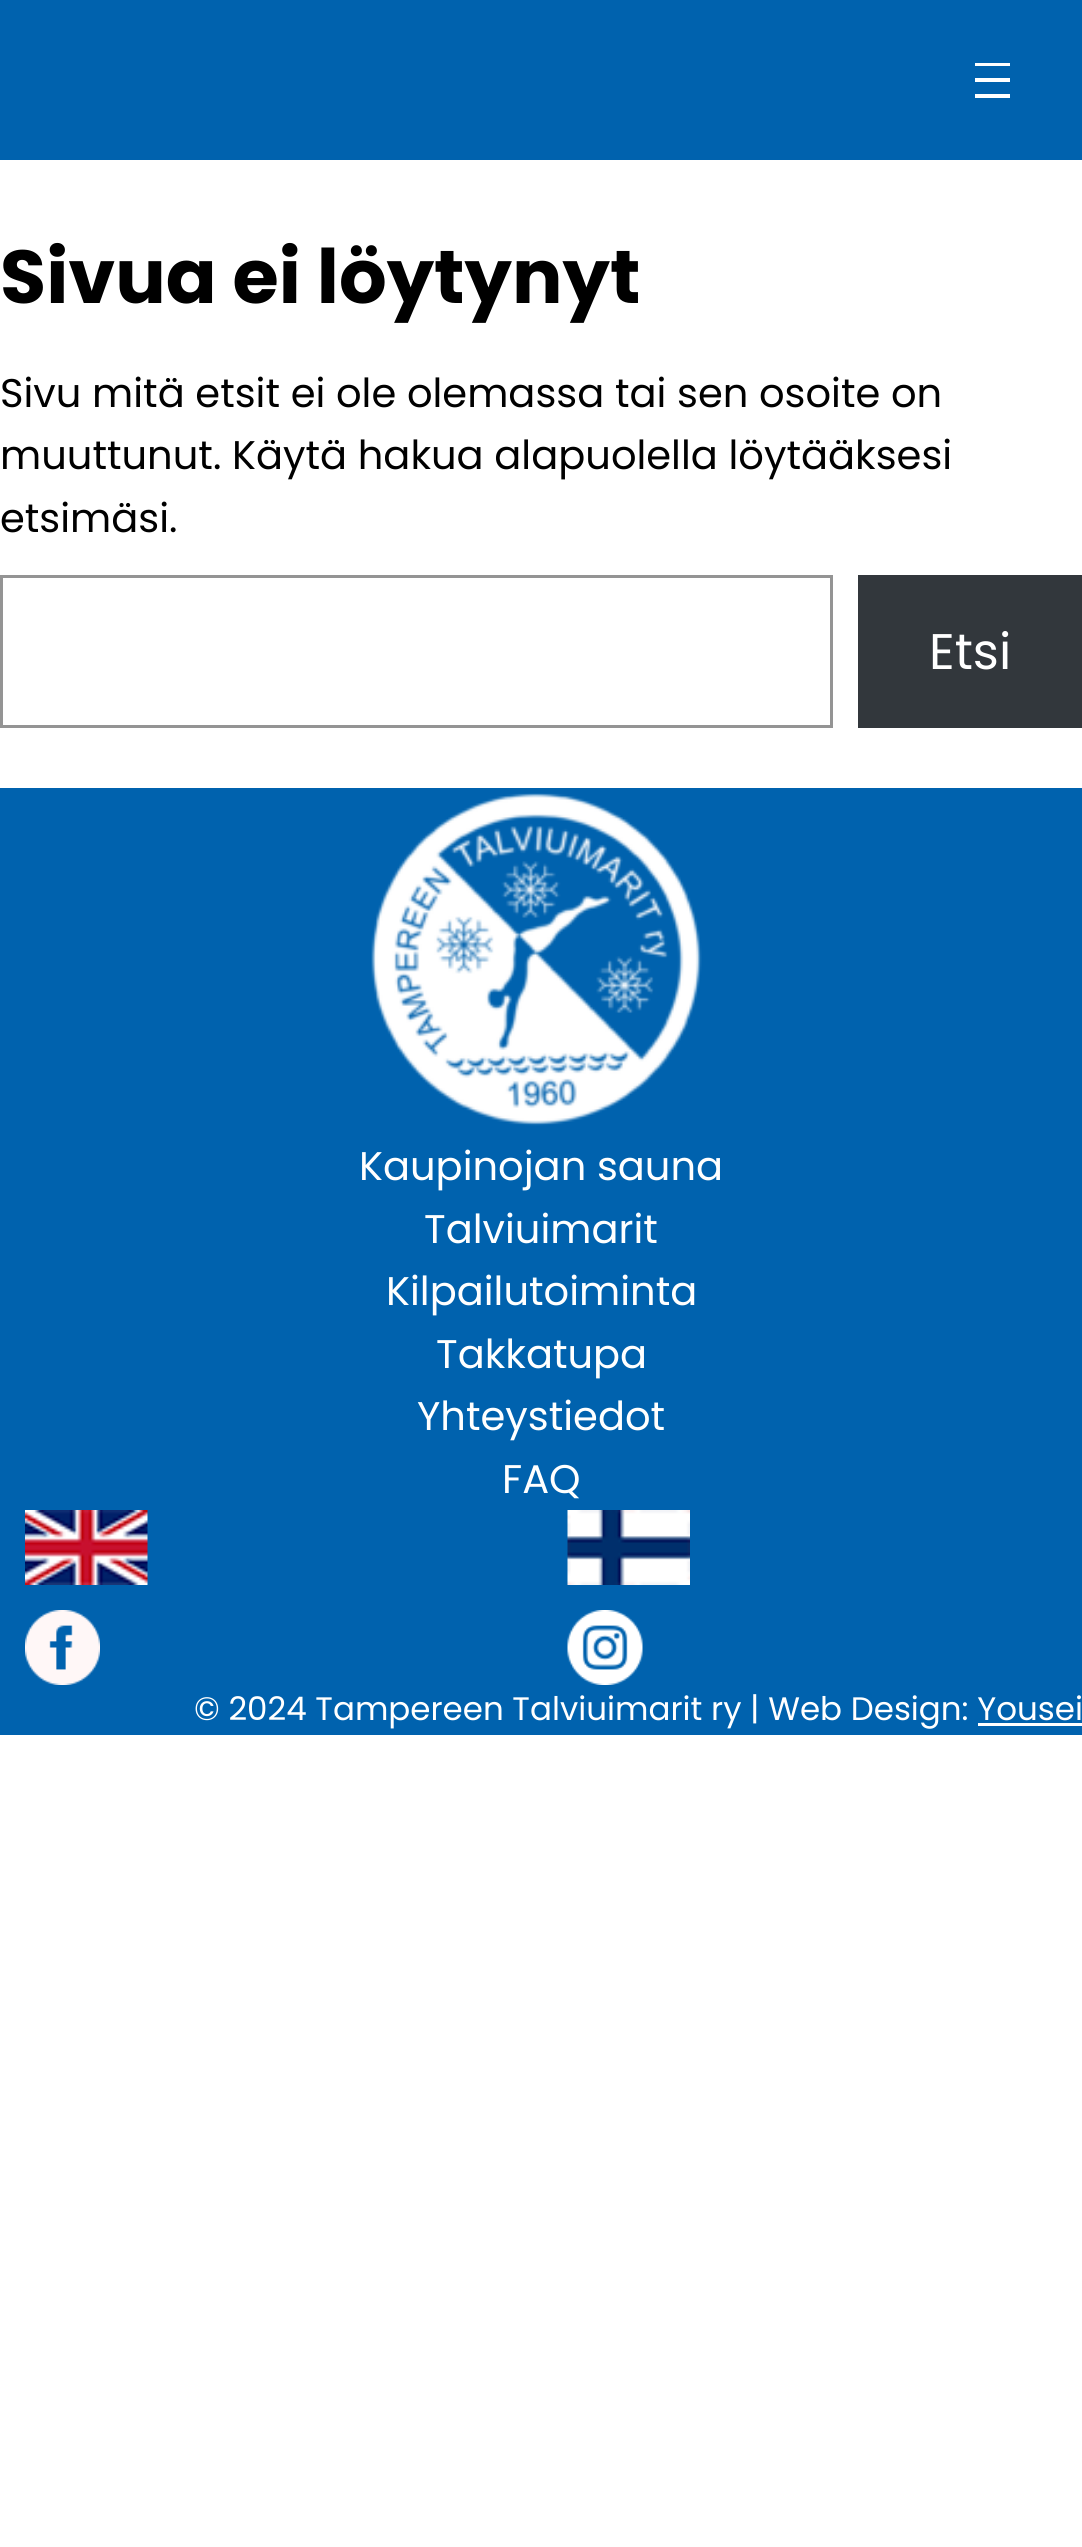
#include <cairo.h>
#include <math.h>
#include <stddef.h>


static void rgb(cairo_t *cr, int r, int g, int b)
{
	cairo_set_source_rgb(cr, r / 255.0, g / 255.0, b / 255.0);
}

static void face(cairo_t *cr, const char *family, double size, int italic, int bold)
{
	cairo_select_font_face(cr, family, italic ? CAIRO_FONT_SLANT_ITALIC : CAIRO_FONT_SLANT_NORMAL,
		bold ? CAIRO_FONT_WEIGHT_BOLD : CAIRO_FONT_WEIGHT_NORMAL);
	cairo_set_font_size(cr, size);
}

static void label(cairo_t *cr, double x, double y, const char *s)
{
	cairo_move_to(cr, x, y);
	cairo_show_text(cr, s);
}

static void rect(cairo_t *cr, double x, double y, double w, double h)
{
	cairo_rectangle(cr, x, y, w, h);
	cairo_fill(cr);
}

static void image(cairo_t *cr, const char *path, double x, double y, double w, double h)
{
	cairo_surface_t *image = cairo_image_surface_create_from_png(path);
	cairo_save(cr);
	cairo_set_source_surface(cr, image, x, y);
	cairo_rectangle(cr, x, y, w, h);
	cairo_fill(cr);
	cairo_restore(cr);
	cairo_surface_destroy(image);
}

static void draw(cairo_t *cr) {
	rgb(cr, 255, 255, 255);
	cairo_paint(cr);
	rgb(cr, 0, 98, 174);
	rect(cr, 0, 0, 1082, 160);
	rgb(cr, 255, 255, 255);
	rect(cr, 975, 63, 35, 3);
	rect(cr, 975, 78, 35, 4);
	rect(cr, 975, 94, 35, 4);
	face(cr, "Poppins", 75, 0, 1);
	rgb(cr, 0, 0, 0);
	label(cr, 0, 303, "Sivua ei löytynyt");
	face(cr, "Poppins", 40, 0, 0);
	label(cr, 0, 407, "Sivu mitä etsit ei ole olemassa tai sen osoite on");
	label(cr, 0, 469, "muuttunut. Käytä hakua alapuolella löytääksesi");
	label(cr, 0, 532, "etsimäsi.");
	cairo_rectangle(cr, 1.5, 576.5, 830, 150);
	rgb(cr, 148, 148, 148);
	cairo_set_line_width(cr, 3);
	cairo_stroke(cr);
	rgb(cr, 50, 55, 60);
	rect(cr, 858, 575, 224, 153);
	face(cr, "Poppins", 50, 0, 0);
	rgb(cr, 255, 255, 255);
	label(cr, 929, 669, "Etsi");
	rgb(cr, 0, 98, 174);
	rect(cr, 0, 788, 1082, 947);
	image(cr, "image0.png", 371, 793, 331, 333);
	face(cr, "Poppins", 40, 0, 0);
	rgb(cr, 255, 255, 255);
	label(cr, 359, 1180, "Kaupinojan sauna");
	label(cr, 424, 1243, "Talviuimarit");
	label(cr, 386, 1305, "Kilpailutoiminta");
	label(cr, 436, 1368, "Takkatupa");
	label(cr, 417, 1430, "Yhteystiedot");
	label(cr, 502, 1493, "FAQ");
	image(cr, "image1.png", 25, 1510, 123, 75);
	image(cr, "image2.png", 567, 1510, 123, 75);
	image(cr, "image3.png", 25, 1610, 75, 75);
	image(cr, "image4.png", 567, 1610, 76, 75);
	face(cr, "Poppins", 32.5, 0, 0);
	label(cr, 194, 1720, "© 2024 Tampereen Talviuimarit ry | Web Design: Yousei");
	rect(cr, 978, 1723, 104, 3);
}

int main(void) {
	cairo_surface_t *surface = cairo_image_surface_create(CAIRO_FORMAT_RGB24, 1082, 2547);
	cairo_t *cr = cairo_create(surface);
	cairo_font_options_t *options = cairo_font_options_create();
	cairo_font_options_set_hint_metrics(options, CAIRO_HINT_METRICS_OFF);
	cairo_font_options_set_hint_style(options, CAIRO_HINT_STYLE_NONE);
	cairo_set_font_options(cr, options);
	cairo_set_miter_limit(cr, 4);
	draw(cr);
	cairo_surface_write_to_png(surface, "render.png");
	cairo_font_options_destroy(options);
	cairo_destroy(cr);
	cairo_surface_destroy(surface);
	return 0;
}
